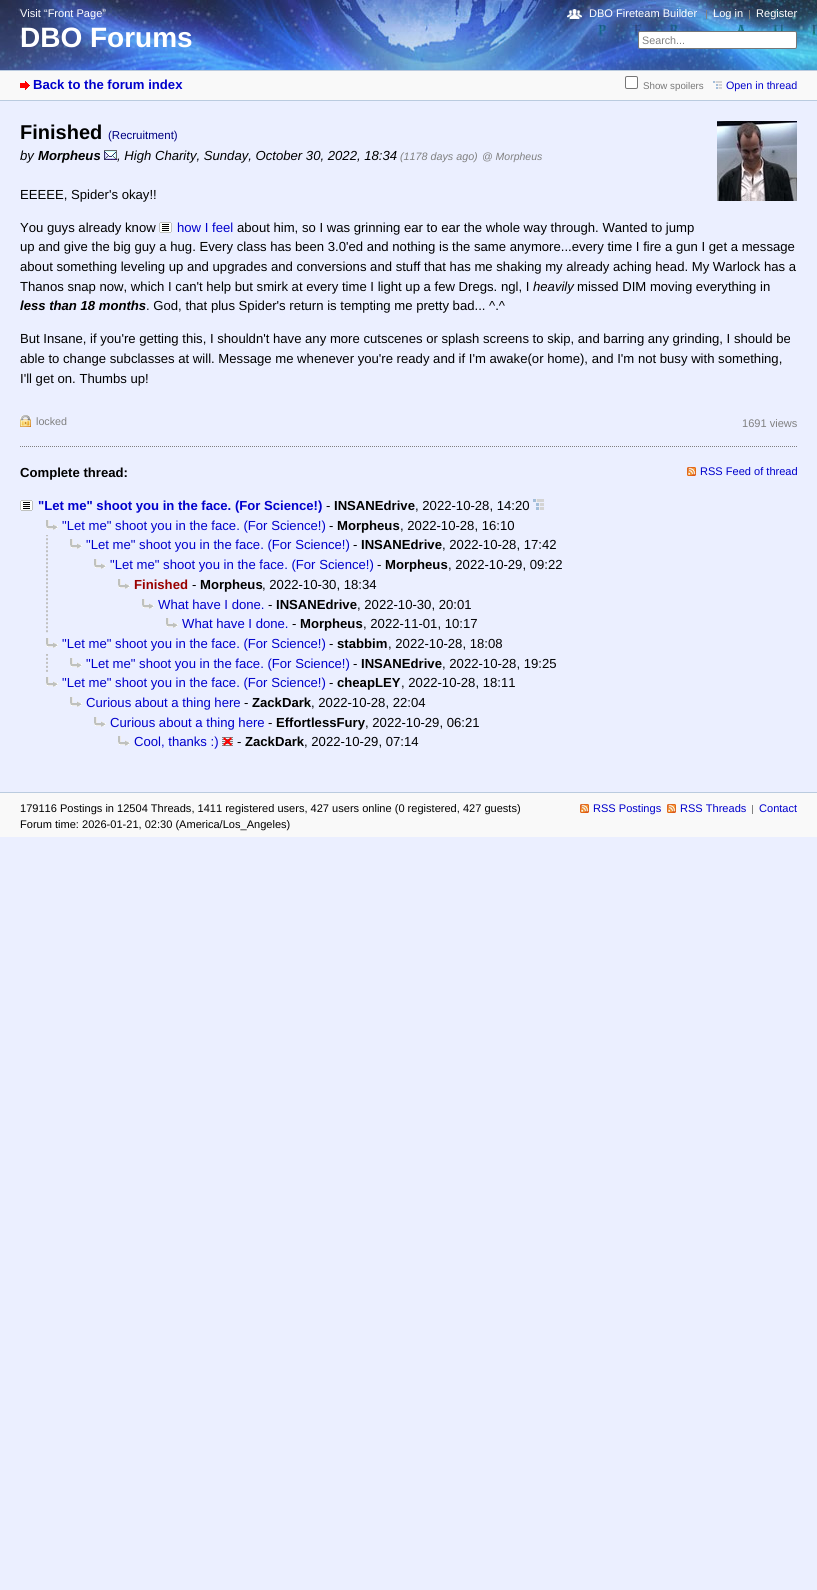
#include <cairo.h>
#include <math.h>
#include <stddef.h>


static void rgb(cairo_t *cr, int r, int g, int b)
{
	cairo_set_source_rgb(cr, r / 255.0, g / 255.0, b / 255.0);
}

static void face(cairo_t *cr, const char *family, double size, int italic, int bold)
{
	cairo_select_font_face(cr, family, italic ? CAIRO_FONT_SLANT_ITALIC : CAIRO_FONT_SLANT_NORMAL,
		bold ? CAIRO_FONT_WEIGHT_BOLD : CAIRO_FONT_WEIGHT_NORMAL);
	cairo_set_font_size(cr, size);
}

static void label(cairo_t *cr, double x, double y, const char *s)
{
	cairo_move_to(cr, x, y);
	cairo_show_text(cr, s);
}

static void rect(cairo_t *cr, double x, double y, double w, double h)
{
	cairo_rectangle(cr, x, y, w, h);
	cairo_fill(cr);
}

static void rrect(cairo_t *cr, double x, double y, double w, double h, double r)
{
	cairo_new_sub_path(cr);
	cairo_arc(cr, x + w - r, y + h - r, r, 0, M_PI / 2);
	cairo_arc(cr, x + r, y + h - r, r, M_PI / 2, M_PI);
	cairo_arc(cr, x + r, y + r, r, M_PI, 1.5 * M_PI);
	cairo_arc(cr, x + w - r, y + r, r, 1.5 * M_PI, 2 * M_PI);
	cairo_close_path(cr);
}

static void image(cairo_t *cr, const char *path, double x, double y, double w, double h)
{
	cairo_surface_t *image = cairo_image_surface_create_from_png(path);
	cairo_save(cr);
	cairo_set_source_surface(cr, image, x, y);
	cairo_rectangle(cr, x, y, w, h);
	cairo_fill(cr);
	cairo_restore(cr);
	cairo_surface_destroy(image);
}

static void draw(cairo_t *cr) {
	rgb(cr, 235, 239, 255);
	cairo_paint(cr);
	image(cr, "image0.png", 0, 0, 817, 70);
	face(cr, "Liberation Sans", 11.05, 0, 0);
	rgb(cr, 255, 255, 255);
	label(cr, 20, 17, "Visit “Front Page”");
	face(cr, "Liberation Sans", 28, 0, 1);
	label(cr, 20, 47, "DBO Forums");
	image(cr, "image1.png", 567, 9, 15, 10);
	face(cr, "Liberation Sans", 11.05, 0, 0);
	label(cr, 589, 17, "DBO Fireteam Builder");
	label(cr, 713, 17, "Log in");
	rgb(cr, 128, 128, 128);
	rect(cr, 706, 10, 1, 9);
	rgb(cr, 255, 255, 255);
	label(cr, 756, 17, "Register");
	rgb(cr, 128, 128, 128);
	rect(cr, 749, 10, 1, 9);
	rgb(cr, 255, 255, 255);
	rrect(cr, 638.5, 31.5, 158, 17, 1.5);
	cairo_fill_preserve(cr);
	rgb(cr, 118, 118, 118);
	cairo_set_line_width(cr, 1);
	cairo_stroke(cr);
	face(cr, "Liberation Sans", 10.75, 0, 0);
	rgb(cr, 128, 128, 128);
	label(cr, 642, 44, "Search...");
	rgb(cr, 249, 249, 249);
	rect(cr, 0, 71, 817, 29);
	rgb(cr, 186, 203, 223);
	rect(cr, 0, 70, 817, 1);
	rect(cr, 0, 100, 817, 1);
	image(cr, "image2.png", 20, 81, 10, 9);
	face(cr, "Liberation Sans", 13.12, 0, 1);
	rgb(cr, 0, 0, 204);
	label(cr, 33, 89, "Back to the forum index");
	rgb(cr, 255, 255, 255);
	rrect(cr, 625.5, 76.5, 12, 12, 1.5);
	cairo_fill_preserve(cr);
	rgb(cr, 118, 118, 118);
	cairo_stroke(cr);
	face(cr, "Liberation Sans", 9.75, 0, 0);
	rgb(cr, 120, 120, 120);
	label(cr, 643, 89, "Show spoilers");
	image(cr, "image3.png", 713, 81, 9, 8);
	face(cr, "Liberation Sans", 10.75, 0, 0);
	rgb(cr, 0, 0, 204);
	label(cr, 726, 89, "Open in thread");
	face(cr, "Liberation Sans", 20, 0, 1);
	rgb(cr, 0, 0, 0);
	label(cr, 20, 139, "Finished");
	face(cr, "Liberation Sans", 11.5, 0, 0);
	rgb(cr, 0, 0, 128);
	label(cr, 108, 139, "(Recruitment)");
	image(cr, "image4.png", 717, 121, 80, 80);
	face(cr, "Liberation Sans", 13.12, 1, 0);
	rgb(cr, 0, 0, 0);
	label(cr, 20, 160, "by");
	face(cr, "Liberation Sans", 13.12, 1, 1);
	label(cr, 38, 160, "Morpheus");
	image(cr, "image5.png", 104, 150, 13, 10);
	face(cr, "Liberation Sans", 13.12, 1, 0);
	label(cr, 117, 160, ", High Charity, Sunday, October 30, 2022, 18:34");
	face(cr, "Liberation Sans", 10.75, 1, 0);
	rgb(cr, 128, 128, 128);
	label(cr, 400, 160, "(1178 days ago)");
	face(cr, "Liberation Sans", 10.5, 1, 0);
	label(cr, 482, 160, "@ Morpheus");
	face(cr, "Liberation Sans", 13.12, 0, 0);
	rgb(cr, 0, 0, 0);
	label(cr, 20, 199, "EEEEE, Spider's okay!!");
	label(cr, 20, 232, "You guys already know");
	image(cr, "image6.png", 159, 222, 13, 11);
	rgb(cr, 0, 0, 204);
	label(cr, 177, 232, "how I feel");
	rgb(cr, 0, 0, 0);
	label(cr, 237, 232, "about him, so I was grinning ear to ear the whole way through. Wanted to jump");
	label(cr, 20, 251, "up and give the big guy a hug. Every class has been 3.0'ed and nothing is the same anymore...every time I fire a gun I get a message");
	label(cr, 20, 271, "about something leveling up and upgrades and conversions and stuff that has me shaking my already aching head. My Warlock has a");
	label(cr, 20, 291, "Thanos snap now, which I can't help but smirk at every time I light up a few Dregs. ngl, I");
	face(cr, "Liberation Sans", 13.12, 1, 0);
	label(cr, 533, 291, "heavily");
	face(cr, "Liberation Sans", 13.12, 0, 0);
	label(cr, 577, 291, "missed DIM moving everything in");
	face(cr, "Liberation Sans", 13.12, 1, 1);
	label(cr, 20, 310, "less than 18 months");
	face(cr, "Liberation Sans", 13.12, 0, 0);
	label(cr, 146, 310, ". God, that plus Spider's return is tempting me pretty bad... ^.^");
	label(cr, 20, 343, "But Insane, if you're getting this, I shouldn't have any more cutscenes or splash screens to skip, and barring any grinding, I should be");
	label(cr, 20, 363, "able to change subclasses at will. Message me whenever you're ready and if I'm awake(or home), and I'm not busy with something,");
	label(cr, 20, 383, "I'll get on. Thumbs up!");
	image(cr, "image7.png", 20, 415, 11, 12);
	face(cr, "Liberation Sans", 10.75, 0, 0);
	rgb(cr, 128, 128, 128);
	label(cr, 36, 425, "locked");
	face(cr, "Liberation Sans", 11.05, 0, 0);
	label(cr, 742, 427, "1691 views");
	cairo_new_path(cr);
	cairo_move_to(cr, 20, 446.5);
	cairo_line_to(cr, 797, 446.5);
	cairo_set_dash(cr, (double[]){1, 1}, 2, 0);
	cairo_stroke(cr);
	face(cr, "Liberation Sans", 13.12, 0, 1);
	rgb(cr, 0, 0, 0);
	label(cr, 20, 477, "Complete thread:");
	image(cr, "image8.png", 687, 467, 9, 9);
	face(cr, "Liberation Sans", 11.05, 0, 0);
	rgb(cr, 0, 0, 204);
	label(cr, 700, 475, "RSS Feed of thread");
	image(cr, "image6.png", 20, 500, 13, 11);
	face(cr, "Liberation Sans", 13.12, 0, 1);
	label(cr, 38, 510, "\"Let me\" shoot you in the face. (For Science!)");
	face(cr, "Liberation Sans", 13.12, 0, 0);
	rgb(cr, 0, 0, 0);
	label(cr, 326, 510, "-");
	face(cr, "Liberation Sans", 13.12, 0, 1);
	label(cr, 334, 510, "INSANEdrive");
	face(cr, "Liberation Sans", 13.12, 0, 0);
	label(cr, 415, 510, ", 2022-10-28, 14:20");
	image(cr, "image9.png", 533, 499, 11, 11);
	image(cr, "image10.png", 46, 520, 12, 10);
	rgb(cr, 0, 0, 204);
	label(cr, 62, 530, "\"Let me\" shoot you in the face. (For Science!)");
	rgb(cr, 0, 0, 0);
	label(cr, 329, 530, "-");
	face(cr, "Liberation Sans", 13.12, 0, 1);
	label(cr, 337, 530, "Morpheus");
	face(cr, "Liberation Sans", 13.12, 0, 0);
	label(cr, 400, 530, ", 2022-10-28, 16:10");
	image(cr, "image11.png", 46, 535, 2, 98);
	image(cr, "image10.png", 70, 539, 12, 10);
	rgb(cr, 0, 0, 204);
	label(cr, 86, 549, "\"Let me\" shoot you in the face. (For Science!)");
	rgb(cr, 0, 0, 0);
	label(cr, 353, 549, "-");
	face(cr, "Liberation Sans", 13.12, 0, 1);
	label(cr, 361, 549, "INSANEdrive");
	face(cr, "Liberation Sans", 13.12, 0, 0);
	label(cr, 442, 549, ", 2022-10-28, 17:42");
	image(cr, "image10.png", 94, 559, 12, 10);
	rgb(cr, 0, 0, 204);
	label(cr, 110, 569, "\"Let me\" shoot you in the face. (For Science!)");
	rgb(cr, 0, 0, 0);
	label(cr, 377, 569, "-");
	face(cr, "Liberation Sans", 13.12, 0, 1);
	label(cr, 385, 569, "Morpheus");
	face(cr, "Liberation Sans", 13.12, 0, 0);
	label(cr, 448, 569, ", 2022-10-29, 09:22");
	image(cr, "image10.png", 118, 579, 12, 10);
	face(cr, "Liberation Sans", 13.12, 0, 1);
	rgb(cr, 153, 0, 0);
	label(cr, 134, 589, "Finished");
	face(cr, "Liberation Sans", 13.12, 0, 0);
	rgb(cr, 0, 0, 0);
	label(cr, 192, 589, "-");
	face(cr, "Liberation Sans", 13.12, 0, 1);
	label(cr, 200, 589, "Morpheus");
	face(cr, "Liberation Sans", 13.12, 0, 0);
	label(cr, 262, 589, ", 2022-10-30, 18:34");
	image(cr, "image10.png", 142, 599, 12, 10);
	rgb(cr, 0, 0, 204);
	label(cr, 158, 609, "What have I done.");
	rgb(cr, 0, 0, 0);
	label(cr, 268, 609, "-");
	face(cr, "Liberation Sans", 13.12, 0, 1);
	label(cr, 276, 609, "INSANEdrive");
	face(cr, "Liberation Sans", 13.12, 0, 0);
	label(cr, 357, 609, ", 2022-10-30, 20:01");
	image(cr, "image10.png", 166, 618, 12, 10);
	rgb(cr, 0, 0, 204);
	label(cr, 182, 628, "What have I done.");
	rgb(cr, 0, 0, 0);
	label(cr, 292, 628, "-");
	face(cr, "Liberation Sans", 13.12, 0, 1);
	label(cr, 300, 628, "Morpheus");
	face(cr, "Liberation Sans", 13.12, 0, 0);
	label(cr, 363, 628, ", 2022-11-01, 10:17");
	image(cr, "image10.png", 46, 638, 12, 10);
	rgb(cr, 0, 0, 204);
	label(cr, 62, 648, "\"Let me\" shoot you in the face. (For Science!)");
	rgb(cr, 0, 0, 0);
	label(cr, 329, 648, "-");
	face(cr, "Liberation Sans", 13.12, 0, 1);
	label(cr, 337, 648, "stabbim");
	face(cr, "Liberation Sans", 13.12, 0, 0);
	label(cr, 388, 648, ", 2022-10-28, 18:08");
	image(cr, "image12.png", 46, 654, 2, 18);
	image(cr, "image10.png", 70, 658, 12, 10);
	rgb(cr, 0, 0, 204);
	label(cr, 86, 668, "\"Let me\" shoot you in the face. (For Science!)");
	rgb(cr, 0, 0, 0);
	label(cr, 353, 668, "-");
	face(cr, "Liberation Sans", 13.12, 0, 1);
	label(cr, 361, 668, "INSANEdrive");
	face(cr, "Liberation Sans", 13.12, 0, 0);
	label(cr, 442, 668, ", 2022-10-28, 19:25");
	image(cr, "image10.png", 46, 677, 12, 10);
	rgb(cr, 0, 0, 204);
	label(cr, 62, 687, "\"Let me\" shoot you in the face. (For Science!)");
	rgb(cr, 0, 0, 0);
	label(cr, 329, 687, "-");
	face(cr, "Liberation Sans", 13.12, 0, 1);
	label(cr, 337, 687, "cheapLEY");
	face(cr, "Liberation Sans", 13.12, 0, 0);
	label(cr, 401, 687, ", 2022-10-28, 18:11");
	image(cr, "image10.png", 70, 697, 12, 10);
	rgb(cr, 0, 0, 204);
	label(cr, 86, 707, "Curious about a thing here");
	rgb(cr, 0, 0, 0);
	label(cr, 244, 707, "-");
	face(cr, "Liberation Sans", 13.12, 0, 1);
	label(cr, 252, 707, "ZackDark");
	face(cr, "Liberation Sans", 13.12, 0, 0);
	label(cr, 311, 707, ", 2022-10-28, 22:04");
	image(cr, "image10.png", 94, 717, 12, 10);
	rgb(cr, 0, 0, 204);
	label(cr, 110, 727, "Curious about a thing here");
	rgb(cr, 0, 0, 0);
	label(cr, 268, 727, "-");
	face(cr, "Liberation Sans", 13.12, 0, 1);
	label(cr, 276, 727, "EffortlessFury");
	face(cr, "Liberation Sans", 13.12, 0, 0);
	label(cr, 365, 727, ", 2022-10-29, 06:21");
	image(cr, "image10.png", 118, 736, 12, 10);
	rgb(cr, 0, 0, 204);
	label(cr, 134, 746, "Cool, thanks :)");
	image(cr, "image13.png", 222, 737, 11, 9);
	rgb(cr, 0, 0, 0);
	label(cr, 237, 746, "-");
	face(cr, "Liberation Sans", 13.12, 0, 1);
	label(cr, 245, 746, "ZackDark");
	face(cr, "Liberation Sans", 13.12, 0, 0);
	label(cr, 304, 746, ", 2022-10-29, 07:14");
	rgb(cr, 249, 249, 249);
	rect(cr, 0, 793, 817, 44);
	rgb(cr, 186, 203, 223);
	rect(cr, 0, 792, 817, 1);
	face(cr, "Liberation Sans", 11.05, 0, 0);
	rgb(cr, 0, 0, 0);
	label(cr, 20, 812, "179116 Postings in 12504 Threads, 1411 registered users, 427 users online (0 registered, 427 guests)");
	label(cr, 20, 828, "Forum time: 2026-01-21, 02:30 (America/Los_Angeles)");
	image(cr, "image8.png", 580, 804, 9, 9);
	rgb(cr, 0, 0, 204);
	label(cr, 593, 812, "RSS Postings");
	image(cr, "image8.png", 667, 804, 9, 9);
	label(cr, 680, 812, "RSS Threads");
	label(cr, 759, 812, "Contact");
	rgb(cr, 128, 128, 128);
	rect(cr, 752, 805, 1, 9);
}

int main(void) {
	cairo_surface_t *surface = cairo_image_surface_create(CAIRO_FORMAT_RGB24, 817, 1590);
	cairo_t *cr = cairo_create(surface);
	cairo_font_options_t *options = cairo_font_options_create();
	cairo_font_options_set_hint_metrics(options, CAIRO_HINT_METRICS_OFF);
	cairo_font_options_set_hint_style(options, CAIRO_HINT_STYLE_NONE);
	cairo_set_font_options(cr, options);
	cairo_set_miter_limit(cr, 4);
	draw(cr);
	cairo_surface_write_to_png(surface, "render.png");
	cairo_font_options_destroy(options);
	cairo_destroy(cr);
	cairo_surface_destroy(surface);
	return 0;
}
